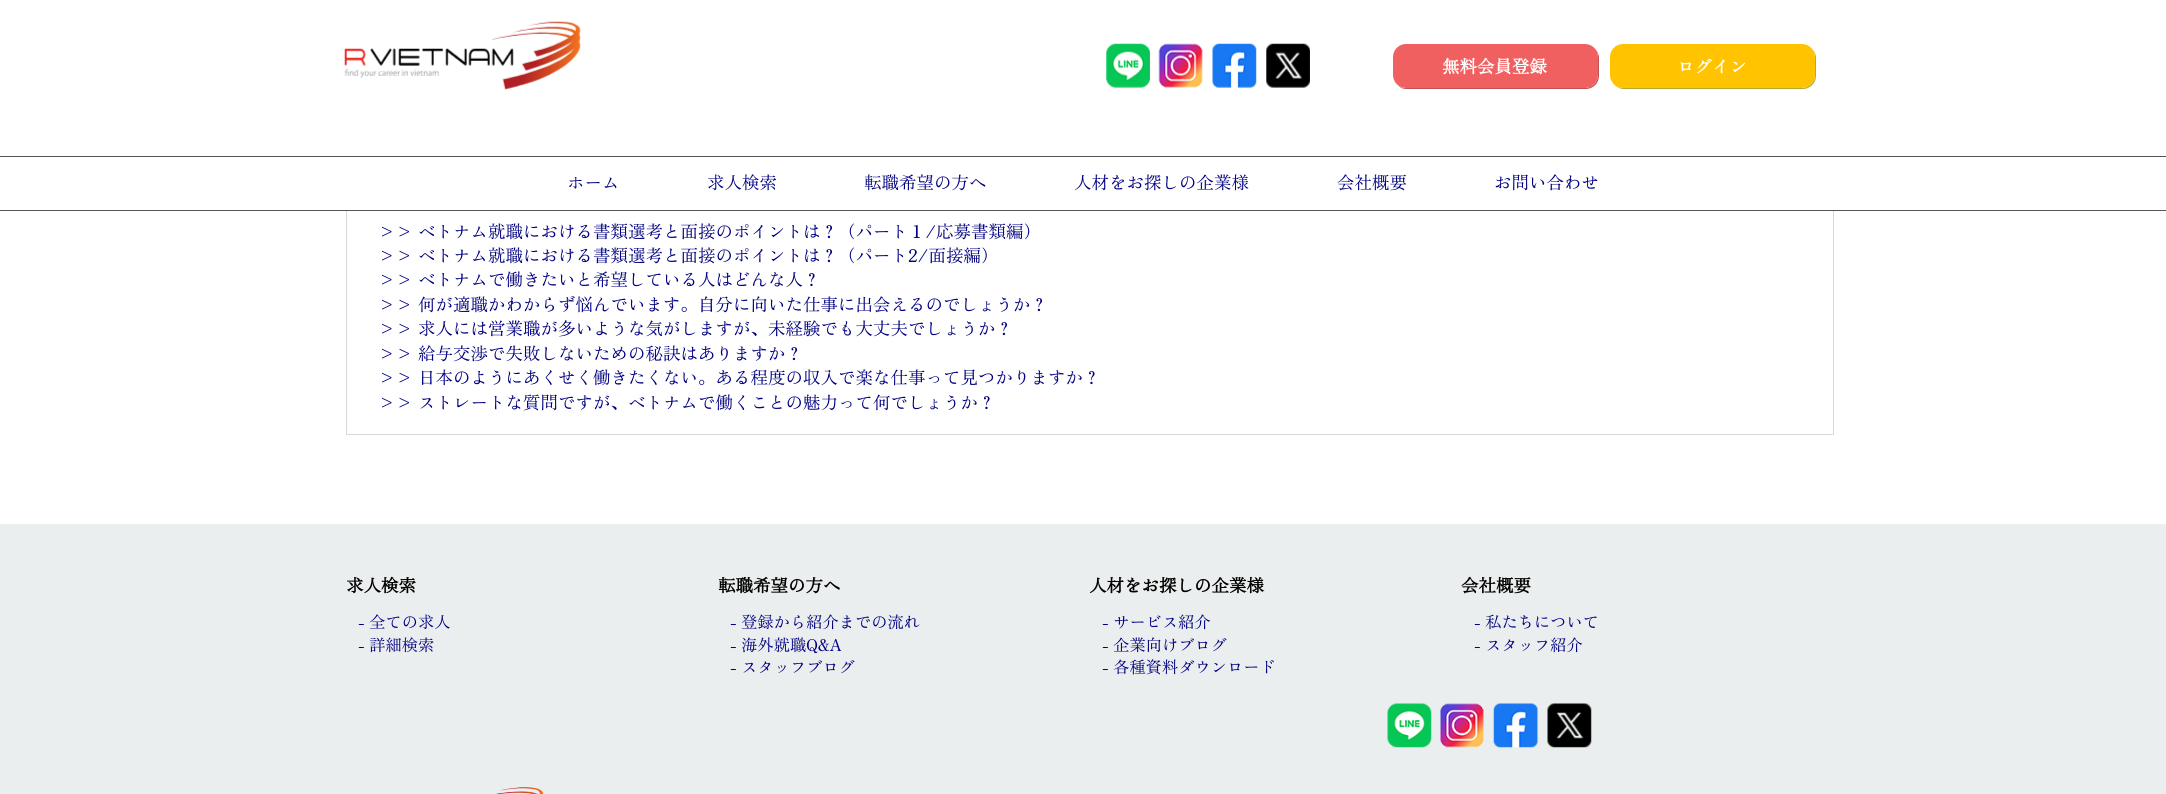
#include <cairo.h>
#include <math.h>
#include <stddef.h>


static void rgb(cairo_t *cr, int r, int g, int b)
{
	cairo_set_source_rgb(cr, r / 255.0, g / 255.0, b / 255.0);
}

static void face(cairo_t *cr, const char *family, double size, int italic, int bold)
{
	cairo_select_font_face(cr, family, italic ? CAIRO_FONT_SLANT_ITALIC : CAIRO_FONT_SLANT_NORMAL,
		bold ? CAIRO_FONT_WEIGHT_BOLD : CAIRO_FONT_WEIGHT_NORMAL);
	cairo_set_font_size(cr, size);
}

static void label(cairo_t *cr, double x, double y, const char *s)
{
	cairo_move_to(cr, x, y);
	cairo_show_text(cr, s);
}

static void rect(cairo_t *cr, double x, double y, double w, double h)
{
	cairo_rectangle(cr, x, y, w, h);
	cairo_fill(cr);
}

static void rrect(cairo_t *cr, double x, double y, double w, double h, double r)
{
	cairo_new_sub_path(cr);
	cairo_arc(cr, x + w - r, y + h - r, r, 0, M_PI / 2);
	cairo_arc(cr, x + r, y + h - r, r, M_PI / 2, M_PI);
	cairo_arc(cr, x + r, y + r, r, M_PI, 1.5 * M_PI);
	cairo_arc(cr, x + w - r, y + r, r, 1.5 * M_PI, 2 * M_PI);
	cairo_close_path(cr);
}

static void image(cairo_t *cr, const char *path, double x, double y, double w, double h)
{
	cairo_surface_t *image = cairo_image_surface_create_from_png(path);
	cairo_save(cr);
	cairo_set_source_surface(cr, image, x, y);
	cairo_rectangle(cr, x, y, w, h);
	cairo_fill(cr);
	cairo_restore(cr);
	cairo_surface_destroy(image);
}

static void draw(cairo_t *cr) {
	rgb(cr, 255, 255, 255);
	cairo_paint(cr);
	cairo_rectangle(cr, 346.5, -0.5, 1487, 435);
	rgb(cr, 218, 217, 217);
	cairo_set_line_width(cr, 1);
	cairo_stroke(cr);
	rgb(cr, 255, 255, 255);
	rect(cr, 346, 0, 1488, 210);
	image(cr, "image0.png", 344, 21, 237, 69);
	image(cr, "image1.png", 1106, 43, 44, 45);
	image(cr, "image2.png", 1158, 43, 45, 45);
	image(cr, "image3.png", 1212, 43, 45, 45);
	image(cr, "image4.png", 1266, 43, 44, 45);
	rgb(cr, 197, 80, 80);
	cairo_new_path(cr);
	cairo_move_to(cr, 1398, 85);
	cairo_curve_to(cr, 1400, 88, 1403, 89, 1407, 89);
	cairo_line_to(cr, 1586, 89);
	cairo_curve_to(cr, 1593, 89, 1599, 83, 1599, 76);
	cairo_line_to(cr, 1599, 58);
	cairo_curve_to(cr, 1599, 54, 1597, 51, 1595, 48);
	cairo_curve_to(cr, 1596, 50, 1598, 53, 1598, 56);
	cairo_line_to(cr, 1598, 75);
	cairo_curve_to(cr, 1598, 82, 1592, 88, 1585, 88);
	cairo_line_to(cr, 1405, 88);
	cairo_curve_to(cr, 1402, 88, 1400, 87, 1398, 85);
	cairo_close_path(cr);
	cairo_fill(cr);
	rgb(cr, 241, 96, 96);
	rrect(cr, 1393, 44, 205, 44, 13);
	cairo_fill(cr);
	face(cr, "Zen Old Mincho", 17.5, 0, 1);
	rgb(cr, 255, 255, 255);
	label(cr, 1442, 73, "無料会員登録");
	rgb(cr, 181, 171, 48);
	cairo_new_path(cr);
	cairo_move_to(cr, 1614, 84);
	cairo_curve_to(cr, 1616, 87, 1620, 89, 1624, 89);
	cairo_line_to(cr, 1803, 89);
	cairo_curve_to(cr, 1810, 89, 1816, 83, 1816, 76);
	cairo_line_to(cr, 1816, 58);
	cairo_curve_to(cr, 1816, 55, 1815, 53, 1814, 50);
	cairo_curve_to(cr, 1814, 52, 1815, 54, 1815, 56);
	cairo_line_to(cr, 1815, 75);
	cairo_curve_to(cr, 1815, 82, 1809, 88, 1802, 88);
	cairo_line_to(cr, 1622, 88);
	cairo_curve_to(cr, 1619, 88, 1616, 86, 1614, 84);
	cairo_close_path(cr);
	cairo_fill(cr);
	rgb(cr, 255, 195, 0);
	rrect(cr, 1610, 44, 205, 44, 13);
	cairo_fill(cr);
	rgb(cr, 255, 255, 255);
	label(cr, 1677, 73, "ログイン");
	rgb(cr, 84, 84, 84);
	rect(cr, 0, 156, 2166, 1);
	rect(cr, 0, 210, 2166, 1);
	face(cr, "Zen Old Mincho", 17.5, 0, 0);
	rgb(cr, 0, 0, 128);
	label(cr, 567, 189, "ホーム");
	label(cr, 707, 189, "求人検索");
	label(cr, 864, 189, "転職希望の方へ");
	label(cr, 1074, 189, "人材をお探しの企業様");
	label(cr, 1337, 189, "会社概要");
	label(cr, 1494, 189, "お問い合わせ");
	label(cr, 378, 238, ">> ベトナム就職における書類選考と面接のポイントは？（パート１/応募書類編）");
	label(cr, 378, 262, ">> ベトナム就職における書類選考と面接のポイントは？（パート2/面接編）");
	label(cr, 378, 286, ">> ベトナムで働きたいと希望している人はどんな人？");
	label(cr, 378, 311, ">> 何が適職かわからず悩んでいます。自分に向いた仕事に出会えるのでしょうか？");
	label(cr, 378, 335, ">> 求人には営業職が多いような気がしますが、未経験でも大丈夫でしょうか？");
	label(cr, 378, 360, ">> 給与交渉で失敗しないための秘訣はありますか？");
	label(cr, 378, 384, ">> 日本のようにあくせく働きたくない。ある程度の収入で楽な仕事って見つかりますか？");
	label(cr, 378, 409, ">> ストレートな質問ですが、ベトナムで働くことの魅力って何でしょうか？");
	rgb(cr, 235, 238, 238);
	rect(cr, 0, 524, 2166, 270);
	face(cr, "Zen Old Mincho", 17.5, 0, 1);
	rgb(cr, 0, 0, 0);
	label(cr, 346, 592, "求人検索");
	face(cr, "Zen Old Mincho", 16.25, 0, 0);
	rgb(cr, 0, 0, 128);
	label(cr, 358, 628, "- 全ての求人");
	label(cr, 358, 651, "- 詳細検索");
	face(cr, "Zen Old Mincho", 17.5, 0, 1);
	rgb(cr, 0, 0, 0);
	label(cr, 718, 592, "転職希望の方へ");
	face(cr, "Zen Old Mincho", 16.25, 0, 0);
	rgb(cr, 0, 0, 128);
	label(cr, 730, 628, "- 登録から紹介までの流れ");
	label(cr, 730, 651, "- 海外就職Q&A");
	label(cr, 730, 673, "- スタッフブログ");
	face(cr, "Zen Old Mincho", 17.5, 0, 1);
	rgb(cr, 0, 0, 0);
	label(cr, 1089, 592, "人材をお探しの企業様");
	face(cr, "Zen Old Mincho", 16.25, 0, 0);
	rgb(cr, 0, 0, 128);
	label(cr, 1102, 628, "- サービス紹介");
	label(cr, 1102, 651, "- 企業向けブログ");
	label(cr, 1102, 673, "- 各種資料ダウンロード");
	face(cr, "Zen Old Mincho", 17.5, 0, 1);
	rgb(cr, 0, 0, 0);
	label(cr, 1461, 592, "会社概要");
	face(cr, "Zen Old Mincho", 16.25, 0, 0);
	rgb(cr, 0, 0, 128);
	label(cr, 1474, 628, "- 私たちについて");
	label(cr, 1474, 651, "- スタッフ紹介");
	image(cr, "image5.png", 1387, 703, 45, 45);
	image(cr, "image6.png", 1440, 703, 44, 45);
	image(cr, "image7.png", 1493, 703, 45, 45);
	image(cr, "image8.png", 1547, 703, 45, 45);
	image(cr, "image9.png", 496, 787, 48, 7);
}

int main(void) {
	cairo_surface_t *surface = cairo_image_surface_create(CAIRO_FORMAT_RGB24, 2166, 794);
	cairo_t *cr = cairo_create(surface);
	cairo_font_options_t *options = cairo_font_options_create();
	cairo_font_options_set_hint_metrics(options, CAIRO_HINT_METRICS_OFF);
	cairo_font_options_set_hint_style(options, CAIRO_HINT_STYLE_NONE);
	cairo_set_font_options(cr, options);
	cairo_set_miter_limit(cr, 4);
	draw(cr);
	cairo_surface_write_to_png(surface, "render.png");
	cairo_font_options_destroy(options);
	cairo_destroy(cr);
	cairo_surface_destroy(surface);
	return 0;
}
